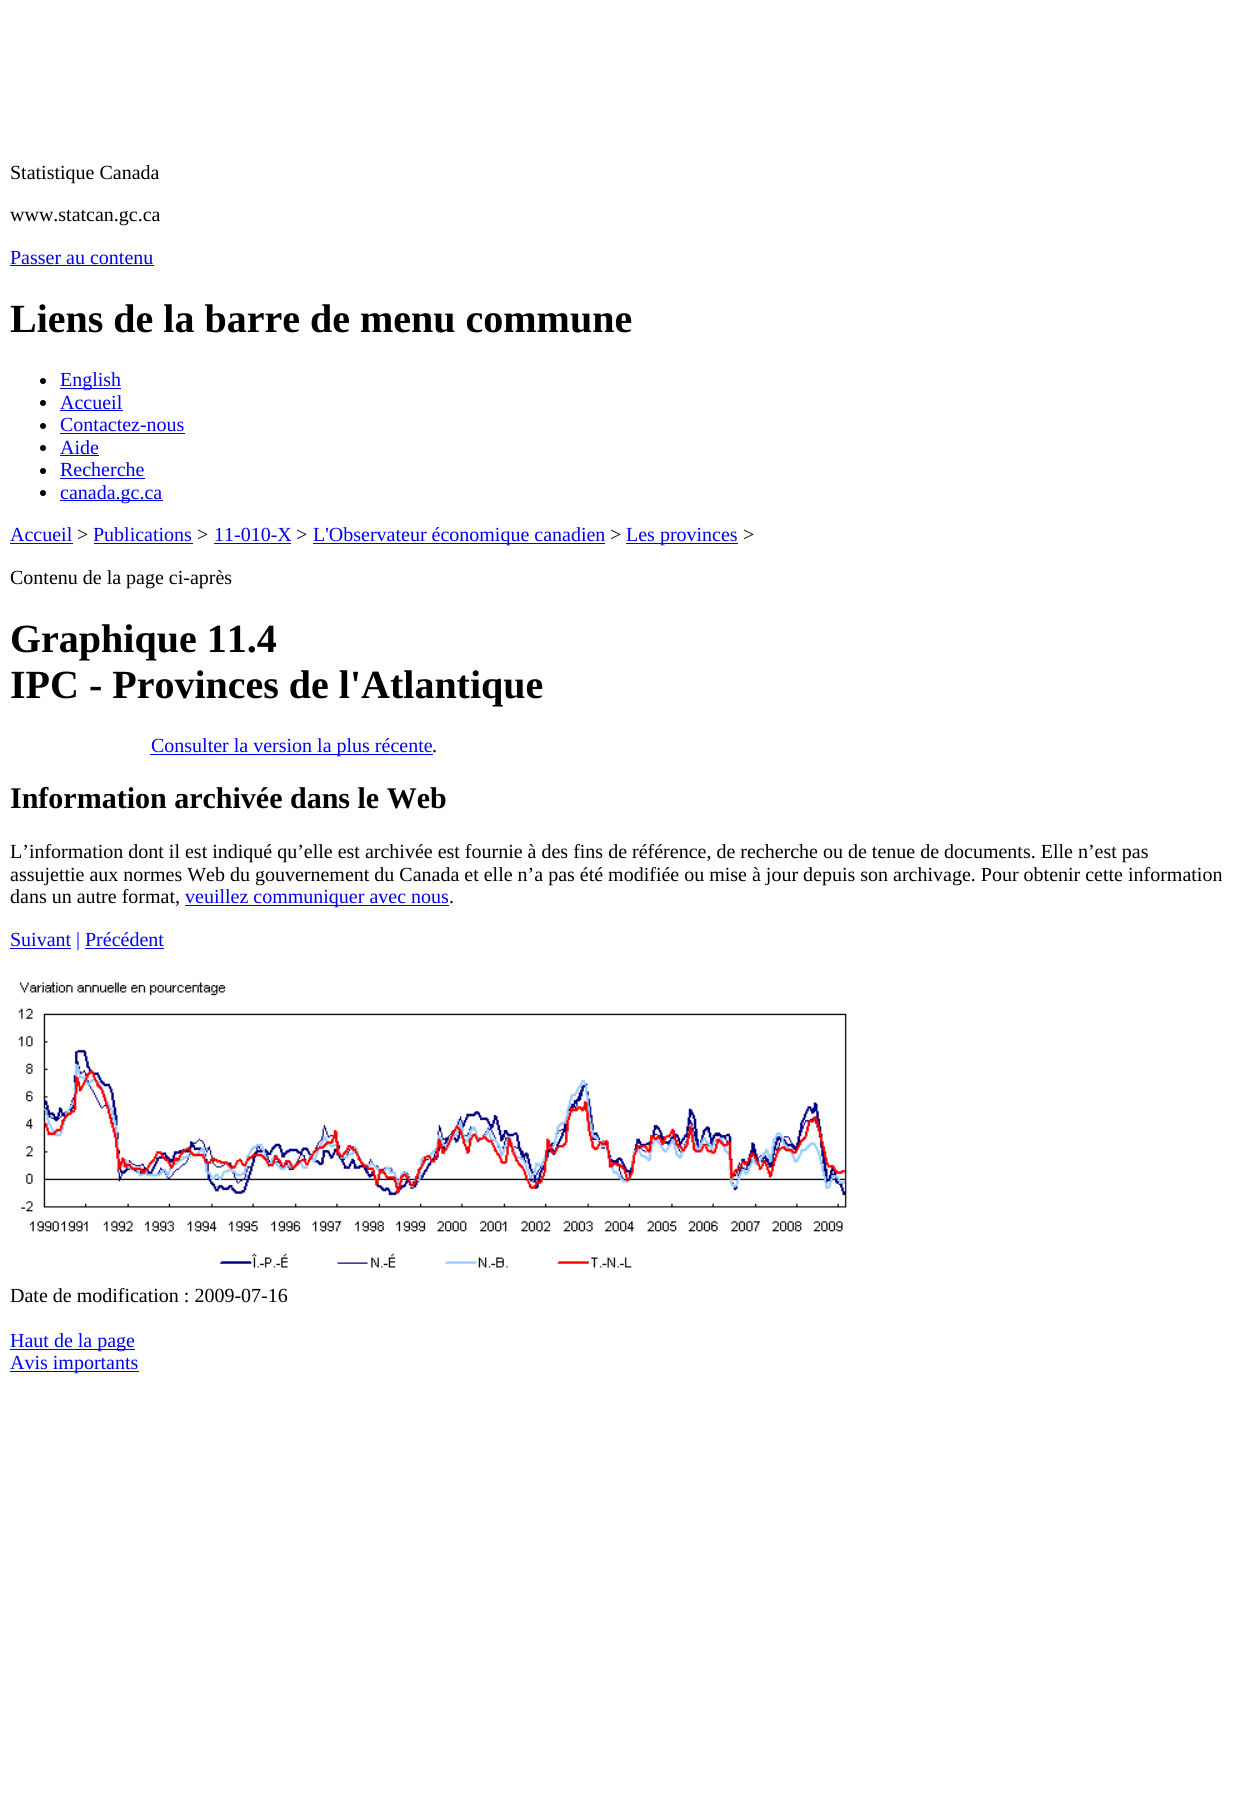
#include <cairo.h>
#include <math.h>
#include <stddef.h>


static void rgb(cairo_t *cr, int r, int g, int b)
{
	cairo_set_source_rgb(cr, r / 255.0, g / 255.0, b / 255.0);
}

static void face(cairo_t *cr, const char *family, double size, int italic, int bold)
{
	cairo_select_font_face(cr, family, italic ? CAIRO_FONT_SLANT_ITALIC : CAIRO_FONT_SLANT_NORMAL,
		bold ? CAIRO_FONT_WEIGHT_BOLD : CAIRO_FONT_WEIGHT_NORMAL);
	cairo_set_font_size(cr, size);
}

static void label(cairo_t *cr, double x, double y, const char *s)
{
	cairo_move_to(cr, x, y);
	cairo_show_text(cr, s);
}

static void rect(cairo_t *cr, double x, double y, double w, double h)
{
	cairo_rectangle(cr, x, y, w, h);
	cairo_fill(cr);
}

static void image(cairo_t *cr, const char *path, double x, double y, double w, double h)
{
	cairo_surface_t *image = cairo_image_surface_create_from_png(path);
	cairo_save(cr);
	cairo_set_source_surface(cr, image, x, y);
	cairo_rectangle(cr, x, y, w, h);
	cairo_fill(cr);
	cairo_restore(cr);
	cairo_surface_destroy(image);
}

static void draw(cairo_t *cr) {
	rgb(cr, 255, 255, 255);
	cairo_paint(cr);
	face(cr, "Liberation Serif", 20, 0, 0);
	rgb(cr, 0, 0, 0);
	label(cr, 10, 179, "Statistique Canada");
	label(cr, 10, 221, "www.statcan.gc.ca");
	rgb(cr, 0, 0, 238);
	label(cr, 10, 264, "Passer au contenu");
	rect(cr, 10, 265, 144, 1);
	face(cr, "Liberation Serif", 40, 0, 1);
	rgb(cr, 0, 0, 0);
	label(cr, 10, 332, "Liens de la barre de menu commune");
	cairo_new_path(cr);
	cairo_arc(cr, 43, 381, 3, 0, 2 * M_PI);
	cairo_fill(cr);
	rgb(cr, 0, 0, 238);
	rect(cr, 60, 388, 61, 1);
	face(cr, "Liberation Serif", 20, 0, 0);
	label(cr, 60, 386, "English");
	rgb(cr, 0, 0, 0);
	cairo_new_path(cr);
	cairo_arc(cr, 43, 403, 3, 0, 2 * M_PI);
	cairo_fill(cr);
	rgb(cr, 0, 0, 238);
	label(cr, 60, 409, "Accueil");
	rect(cr, 60, 410, 63, 1);
	rgb(cr, 0, 0, 0);
	cairo_new_path(cr);
	cairo_arc(cr, 43, 426, 3, 0, 2 * M_PI);
	cairo_fill(cr);
	rgb(cr, 0, 0, 238);
	label(cr, 60, 431, "Contactez-nous");
	rect(cr, 60, 433, 125, 1);
	rgb(cr, 0, 0, 0);
	cairo_new_path(cr);
	cairo_arc(cr, 43, 448, 3, 0, 2 * M_PI);
	cairo_fill(cr);
	rgb(cr, 0, 0, 238);
	label(cr, 60, 454, "Aide");
	rect(cr, 60, 455, 39, 1);
	rgb(cr, 0, 0, 0);
	cairo_new_path(cr);
	cairo_arc(cr, 43, 471, 3, 0, 2 * M_PI);
	cairo_fill(cr);
	rgb(cr, 0, 0, 238);
	label(cr, 60, 476, "Recherche");
	rect(cr, 60, 478, 85, 1);
	rgb(cr, 0, 0, 0);
	cairo_new_path(cr);
	cairo_arc(cr, 43, 493, 3, 0, 2 * M_PI);
	cairo_fill(cr);
	rgb(cr, 0, 0, 238);
	rect(cr, 60, 500, 103, 1);
	label(cr, 60, 499, "canada.gc.ca");
	label(cr, 10, 541, "Accueil");
	rect(cr, 10, 543, 63, 1);
	rgb(cr, 0, 0, 0);
	label(cr, 77, 541, ">");
	rgb(cr, 0, 0, 238);
	label(cr, 93, 541, "Publications");
	rect(cr, 94, 543, 99, 1);
	rgb(cr, 0, 0, 0);
	label(cr, 197, 541, ">");
	rgb(cr, 0, 0, 238);
	label(cr, 214, 541, "11-010-X");
	rect(cr, 214, 543, 77, 1);
	rgb(cr, 0, 0, 0);
	label(cr, 296, 541, ">");
	rgb(cr, 0, 0, 238);
	rect(cr, 313, 543, 292, 1);
	label(cr, 313, 541, "L'Observateur économique canadien");
	rgb(cr, 0, 0, 0);
	label(cr, 610, 541, ">");
	rgb(cr, 0, 0, 238);
	rect(cr, 626, 543, 112, 1);
	label(cr, 626, 541, "Les provinces");
	rgb(cr, 0, 0, 0);
	label(cr, 743, 541, ">");
	label(cr, 10, 584, "Contenu de la page ci-après");
	face(cr, "Liberation Serif", 40, 0, 1);
	label(cr, 10, 652, "Graphique 11.4");
	label(cr, 10, 698, "IPC - Provinces de l'Atlantique");
	rgb(cr, 0, 0, 238);
	rect(cr, 150, 754, 283, 1);
	face(cr, "Liberation Serif", 20, 0, 0);
	label(cr, 151, 752, "Consulter la version la plus récente");
	rgb(cr, 0, 0, 0);
	label(cr, 432, 752, ".");
	face(cr, "Liberation Serif", 30, 0, 1);
	label(cr, 10, 808, "Information archivée dans le Web");
	face(cr, "Liberation Serif", 20, 0, 0);
	label(cr, 10, 858, "L’information dont il est indiqué qu’elle est archivée est fournie à des fins de référence, de recherche ou de tenue de documents. Elle n’est pas");
	label(cr, 10, 881, "assujettie aux normes Web du gouvernement du Canada et elle n’a pas été modifiée ou mise à jour depuis son archivage. Pour obtenir cette information");
	label(cr, 10, 903, "dans un autre format,");
	rgb(cr, 0, 0, 238);
	rect(cr, 185, 905, 264, 1);
	label(cr, 185, 903, "veuillez communiquer avec nous");
	rgb(cr, 0, 0, 0);
	label(cr, 449, 903, ".");
	rgb(cr, 0, 0, 238);
	label(cr, 10, 946, "Suivant");
	rect(cr, 10, 948, 61, 1);
	rgb(cr, 0, 0, 255);
	label(cr, 76, 946, "|");
	rgb(cr, 0, 0, 238);
	label(cr, 85, 946, "Précédent");
	rect(cr, 85, 948, 79, 1);
	image(cr, "image0.png", 18, 982, 829, 286);
	rgb(cr, 0, 0, 0);
	label(cr, 10, 1302, "Date de modification : 2009-07-16");
	rgb(cr, 0, 0, 238);
	rect(cr, 10, 1349, 125, 1);
	label(cr, 10, 1347, "Haut de la page");
	rect(cr, 10, 1371, 129, 1);
	label(cr, 10, 1369, "Avis importants");
}

int main(void) {
	cairo_surface_t *surface = cairo_image_surface_create(CAIRO_FORMAT_RGB24, 1235, 1793);
	cairo_t *cr = cairo_create(surface);
	cairo_font_options_t *options = cairo_font_options_create();
	cairo_font_options_set_hint_metrics(options, CAIRO_HINT_METRICS_OFF);
	cairo_font_options_set_hint_style(options, CAIRO_HINT_STYLE_NONE);
	cairo_set_font_options(cr, options);
	cairo_set_miter_limit(cr, 4);
	draw(cr);
	cairo_surface_write_to_png(surface, "render.png");
	cairo_font_options_destroy(options);
	cairo_destroy(cr);
	cairo_surface_destroy(surface);
	return 0;
}
